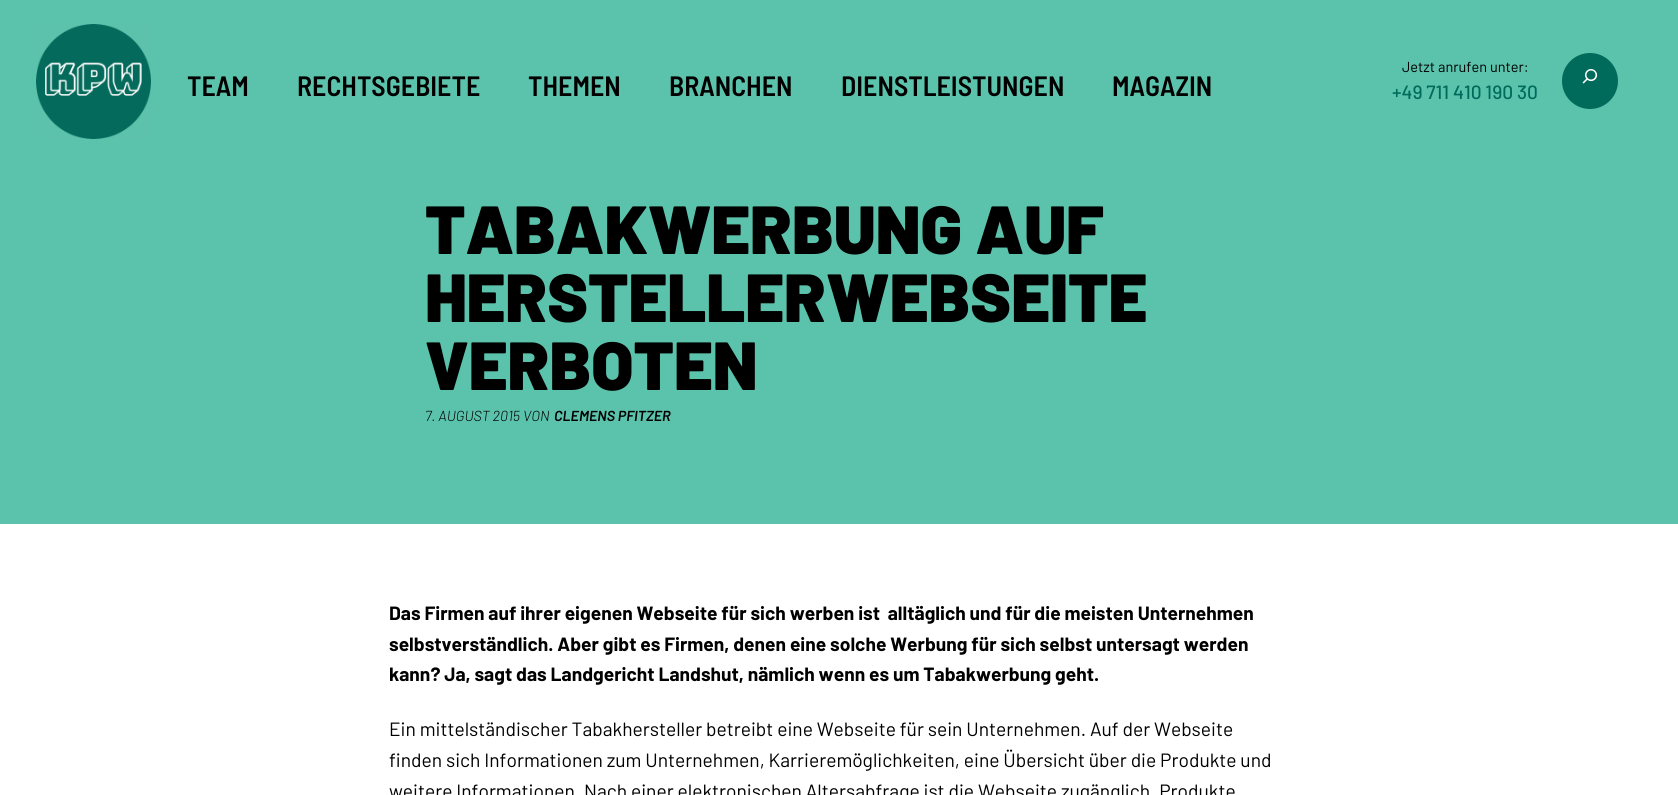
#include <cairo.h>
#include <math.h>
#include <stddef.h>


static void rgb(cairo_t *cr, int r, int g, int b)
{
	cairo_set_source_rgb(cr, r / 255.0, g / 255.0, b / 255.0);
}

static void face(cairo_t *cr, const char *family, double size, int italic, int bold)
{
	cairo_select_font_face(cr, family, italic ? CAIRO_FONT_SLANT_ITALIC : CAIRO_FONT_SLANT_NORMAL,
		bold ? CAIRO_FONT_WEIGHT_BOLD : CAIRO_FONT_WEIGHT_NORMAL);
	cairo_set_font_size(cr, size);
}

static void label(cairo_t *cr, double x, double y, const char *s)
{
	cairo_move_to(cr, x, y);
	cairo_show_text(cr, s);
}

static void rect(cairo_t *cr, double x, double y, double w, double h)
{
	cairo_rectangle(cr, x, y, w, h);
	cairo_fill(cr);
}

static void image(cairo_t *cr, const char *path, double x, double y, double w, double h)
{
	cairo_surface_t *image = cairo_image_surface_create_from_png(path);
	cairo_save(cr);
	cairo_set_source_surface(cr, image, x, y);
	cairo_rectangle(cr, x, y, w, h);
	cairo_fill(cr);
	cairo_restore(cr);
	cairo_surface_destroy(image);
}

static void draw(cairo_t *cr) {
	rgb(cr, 255, 255, 255);
	cairo_paint(cr);
	rgb(cr, 91, 194, 172);
	rect(cr, 0, 0, 1678, 524);
	image(cr, "image0.png", 36, 24, 115, 115);
	face(cr, "Barlow Semi Condensed SemiBold", 28, 0, 0);
	rgb(cr, 0, 0, 0);
	label(cr, 187, 96, "TEAM");
	label(cr, 297, 96, "RECHTSGEBIETE");
	label(cr, 528, 96, "THEMEN");
	label(cr, 669, 96, "BRANCHEN");
	label(cr, 841, 96, "DIENSTLEISTUNGEN");
	label(cr, 1112, 96, "MAGAZIN");
	face(cr, "Barlow", 14.5, 0, 0);
	label(cr, 1402, 72, "Jetzt anrufen unter:");
	face(cr, "Barlow Medium", 19.2, 0, 0);
	rgb(cr, 0, 107, 91);
	label(cr, 1392, 99, "+49 711 410 190 30");
	cairo_new_path(cr);
	cairo_arc(cr, 1590, 81, 28, 0, 2 * M_PI);
	cairo_fill(cr);
	image(cr, "image1.png", 1582, 69, 16, 15);
	face(cr, "Barlow Black", 68, 0, 0);
	rgb(cr, 0, 0, 0);
	label(cr, 425, 254, "TABAKWERBUNG AUF");
	label(cr, 425, 322, "HERSTELLERWEBSEITE");
	label(cr, 425, 390, "VERBOTEN");
	face(cr, "Barlow Light", 14.5, 1, 0);
	label(cr, 425, 421, "7. AUGUST 2015");
	label(cr, 523, 421, "VON");
	face(cr, "Barlow SemiBold", 14.5, 1, 0);
	label(cr, 554, 421, "CLEMENS PFITZER");
	face(cr, "Barlow", 19.2, 0, 1);
	label(cr, 389, 620, "Das Firmen auf ihrer eigenen Webseite für sich werben ist  alltäglich und für die meisten Unternehmen");
	label(cr, 389, 651, "selbstverständlich. Aber gibt es Firmen, denen eine solche Werbung für sich selbst untersagt werden");
	label(cr, 389, 681, "kann? Ja, sagt das Landgericht Landshut, nämlich wenn es um Tabakwerbung geht.");
	face(cr, "Barlow", 19.2, 0, 0);
	label(cr, 389, 736, "Ein mittelständischer Tabakhersteller betreibt eine Webseite für sein Unternehmen. Auf der Webseite");
	label(cr, 389, 767, "finden sich Informationen zum Unternehmen, Karrieremöglichkeiten, eine Übersicht über die Produkte und");
	label(cr, 389, 798, "weitere Informationen. Nach einer elektronischen Altersabfrage ist die Webseite zugänglich. Produkte");
}

int main(void) {
	cairo_surface_t *surface = cairo_image_surface_create(CAIRO_FORMAT_RGB24, 1678, 795);
	cairo_t *cr = cairo_create(surface);
	cairo_font_options_t *options = cairo_font_options_create();
	cairo_font_options_set_hint_metrics(options, CAIRO_HINT_METRICS_OFF);
	cairo_font_options_set_hint_style(options, CAIRO_HINT_STYLE_NONE);
	cairo_set_font_options(cr, options);
	cairo_set_miter_limit(cr, 4);
	draw(cr);
	cairo_surface_write_to_png(surface, "render.png");
	cairo_font_options_destroy(options);
	cairo_destroy(cr);
	cairo_surface_destroy(surface);
	return 0;
}
